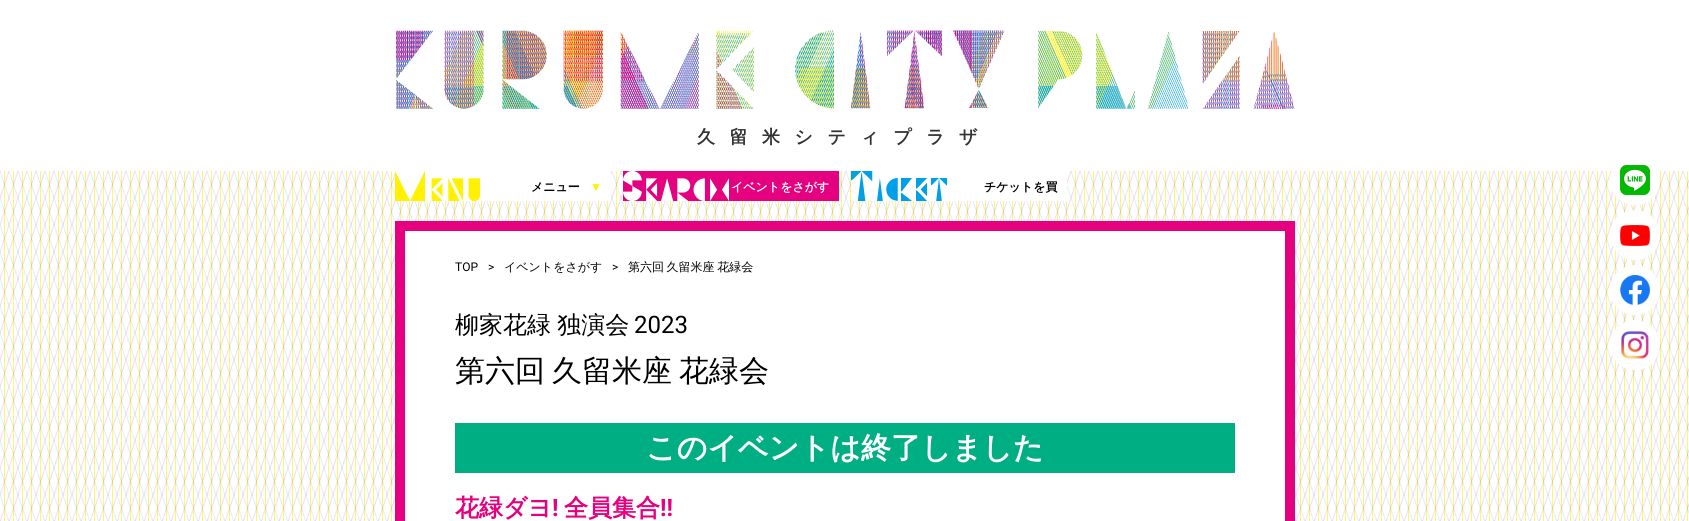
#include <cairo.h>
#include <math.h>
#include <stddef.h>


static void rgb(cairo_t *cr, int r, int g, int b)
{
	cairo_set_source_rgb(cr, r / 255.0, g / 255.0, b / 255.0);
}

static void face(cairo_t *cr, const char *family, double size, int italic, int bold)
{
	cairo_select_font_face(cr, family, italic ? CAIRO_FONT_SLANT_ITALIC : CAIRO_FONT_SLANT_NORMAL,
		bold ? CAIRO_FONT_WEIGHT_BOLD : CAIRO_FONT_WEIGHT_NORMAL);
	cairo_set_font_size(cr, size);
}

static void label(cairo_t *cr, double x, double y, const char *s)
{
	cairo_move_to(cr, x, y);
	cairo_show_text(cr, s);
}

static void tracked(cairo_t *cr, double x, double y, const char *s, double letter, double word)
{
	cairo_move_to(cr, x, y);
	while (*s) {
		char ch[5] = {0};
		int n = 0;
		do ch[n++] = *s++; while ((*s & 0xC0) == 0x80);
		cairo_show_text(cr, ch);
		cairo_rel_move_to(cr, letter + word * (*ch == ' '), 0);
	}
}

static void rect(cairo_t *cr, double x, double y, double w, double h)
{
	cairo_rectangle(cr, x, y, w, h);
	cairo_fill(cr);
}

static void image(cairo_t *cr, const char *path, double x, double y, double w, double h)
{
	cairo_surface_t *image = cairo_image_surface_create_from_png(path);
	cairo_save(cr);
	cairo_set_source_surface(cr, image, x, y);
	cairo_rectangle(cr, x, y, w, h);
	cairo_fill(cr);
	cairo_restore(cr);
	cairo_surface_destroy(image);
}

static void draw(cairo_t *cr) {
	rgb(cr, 255, 255, 255);
	cairo_paint(cr);
	image(cr, "image0.png", 396, 30, 899, 79);
	face(cr, "WenQuanYi Zen Hei", 18, 0, 1);
	rgb(cr, 51, 51, 51);
	tracked(cr, 697, 143, "久留米シティプラザ", 14.5, 0);
	image(cr, "image1.png", 4, 171, 1684, 350);
	image(cr, "image2.png", 0, 171, 1689, 350);
	image(cr, "image3.png", 0, 171, 1689, 350);
	rgb(cr, 255, 255, 255);
	rect(cr, 395, 171, 216, 30);
	image(cr, "image4.png", 395, 171, 85, 30);
	face(cr, "WenQuanYi Zen Hei", 12, 0, 1);
	rgb(cr, 0, 0, 0);
	label(cr, 531, 191, "メニュー");
	face(cr, "Liberation Sans", 12, 0, 1);
	rgb(cr, 255, 241, 0);
	label(cr, 590, 191, "▼");
	rgb(cr, 228, 0, 127);
	rect(cr, 623, 171, 216, 30);
	image(cr, "image5.png", 623, 171, 106, 30);
	face(cr, "WenQuanYi Zen Hei", 12, 0, 1);
	rgb(cr, 255, 255, 255);
	label(cr, 731, 191, "イベントをさがす");
	rect(cr, 851, 171, 216, 30);
	image(cr, "image6.png", 851, 171, 96, 30);
	rgb(cr, 0, 0, 0);
	label(cr, 984, 191, "チケットを買");
	rgb(cr, 255, 255, 255);
	cairo_new_path(cr);
	cairo_arc(cr, 1635, 180, 25, 0, 2 * M_PI);
	cairo_fill(cr);
	image(cr, "image7.png", 1620, 165, 30, 30);
	cairo_arc(cr, 1635, 235, 25, 0, 2 * M_PI);
	cairo_fill(cr);
	image(cr, "image8.png", 1620, 225, 30, 21);
	cairo_arc(cr, 1635, 290, 25, 0, 2 * M_PI);
	cairo_fill(cr);
	image(cr, "image9.png", 1620, 275, 30, 30);
	cairo_arc(cr, 1635, 345, 25, 0, 2 * M_PI);
	cairo_fill(cr);
	image(cr, "image10.png", 1621, 331, 28, 28);
	cairo_rectangle(cr, 400, 226, 890, 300);
	cairo_fill_preserve(cr);
	rgb(cr, 228, 0, 127);
	cairo_set_line_width(cr, 10);
	cairo_stroke(cr);
	face(cr, "Roboto", 12, 0, 0);
	rgb(cr, 0, 0, 0);
	label(cr, 455, 271, "TOP");
	label(cr, 488, 271, ">");
	face(cr, "WenQuanYi Zen Hei Medium", 12, 0, 0);
	label(cr, 504, 271, "イベントをさがす");
	face(cr, "Roboto", 12, 0, 0);
	label(cr, 612, 271, ">");
	face(cr, "WenQuanYi Zen Hei Medium", 12, 0, 0);
	tracked(cr, 628, 271, "第六回 久留米座 花緑会", 0, -1);
	face(cr, "WenQuanYi Zen Hei Medium", 24, 0, 0);
	tracked(cr, 455, 333, "柳家花緑 独演会", 0, -1);
	face(cr, "Roboto", 24, 0, 0);
	label(cr, 634, 333, "2023");
	face(cr, "WenQuanYi Zen Hei Medium", 30, 0, 0);
	tracked(cr, 455, 381, "第六回 久留米座 花緑会", 0, -2);
	rgb(cr, 0, 174, 131);
	rect(cr, 455, 423, 780, 50);
	face(cr, "WenQuanYi Zen Hei", 30, 0, 1);
	rgb(cr, 255, 255, 255);
	label(cr, 646, 458, "このイベントは終了しました");
	face(cr, "WenQuanYi Zen Hei", 24, 0, 1);
	rgb(cr, 229, 0, 128);
	label(cr, 455, 516, "花緑ダヨ");
	face(cr, "Roboto", 24, 0, 1);
	label(cr, 552, 516, "!");
	face(cr, "WenQuanYi Zen Hei", 24, 0, 1);
	label(cr, 564, 516, "全員集合");
	face(cr, "Roboto", 24, 0, 1);
	label(cr, 660, 516, "!!");
}

int main(void) {
	cairo_surface_t *surface = cairo_image_surface_create(CAIRO_FORMAT_RGB24, 1689, 521);
	cairo_t *cr = cairo_create(surface);
	cairo_font_options_t *options = cairo_font_options_create();
	cairo_font_options_set_hint_metrics(options, CAIRO_HINT_METRICS_OFF);
	cairo_font_options_set_hint_style(options, CAIRO_HINT_STYLE_NONE);
	cairo_set_font_options(cr, options);
	cairo_set_miter_limit(cr, 4);
	draw(cr);
	cairo_surface_write_to_png(surface, "render.png");
	cairo_font_options_destroy(options);
	cairo_destroy(cr);
	cairo_surface_destroy(surface);
	return 0;
}
